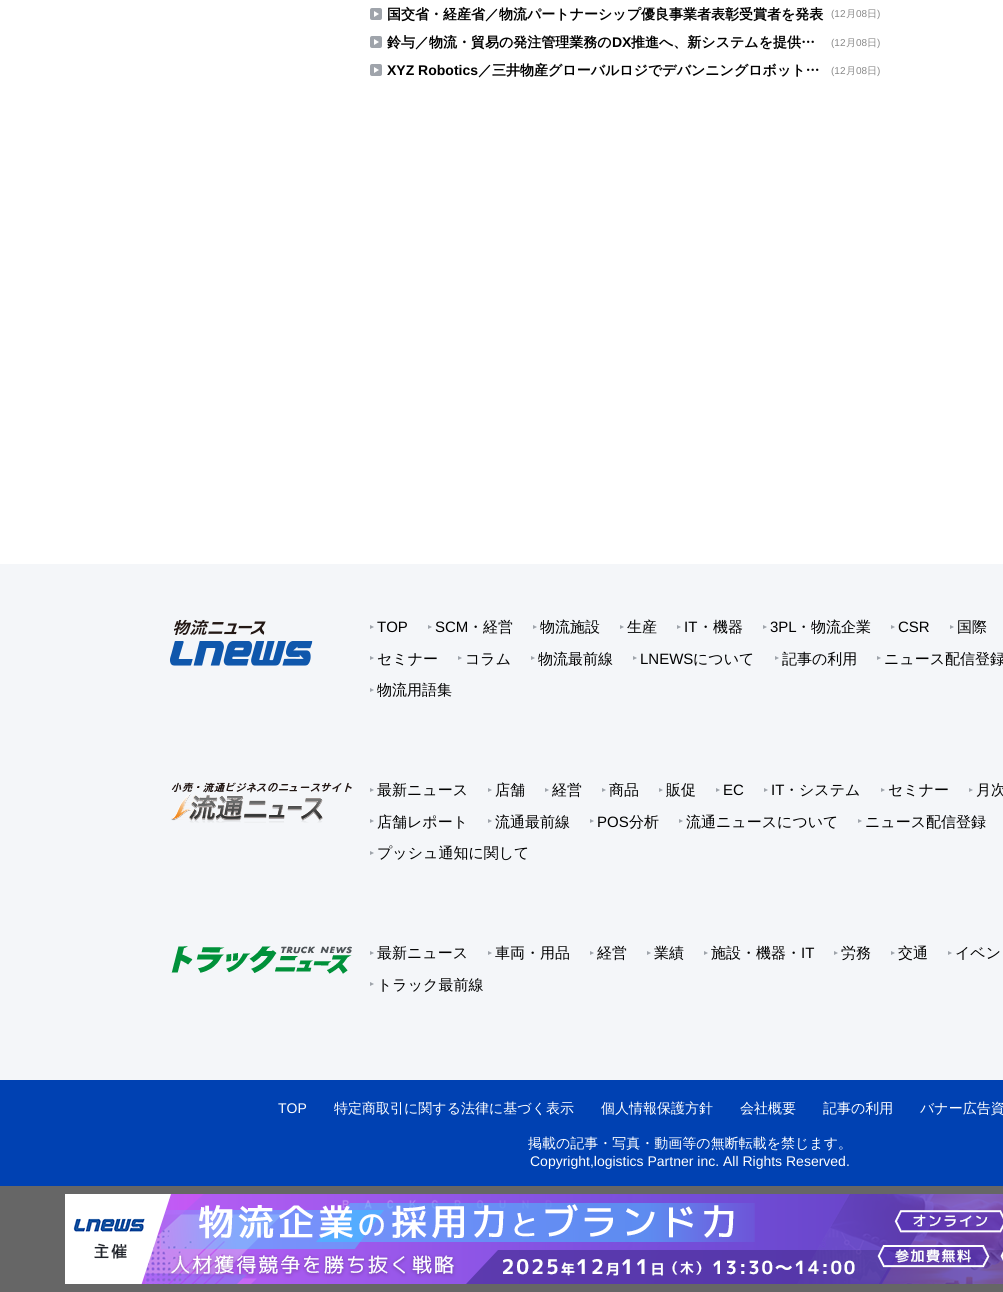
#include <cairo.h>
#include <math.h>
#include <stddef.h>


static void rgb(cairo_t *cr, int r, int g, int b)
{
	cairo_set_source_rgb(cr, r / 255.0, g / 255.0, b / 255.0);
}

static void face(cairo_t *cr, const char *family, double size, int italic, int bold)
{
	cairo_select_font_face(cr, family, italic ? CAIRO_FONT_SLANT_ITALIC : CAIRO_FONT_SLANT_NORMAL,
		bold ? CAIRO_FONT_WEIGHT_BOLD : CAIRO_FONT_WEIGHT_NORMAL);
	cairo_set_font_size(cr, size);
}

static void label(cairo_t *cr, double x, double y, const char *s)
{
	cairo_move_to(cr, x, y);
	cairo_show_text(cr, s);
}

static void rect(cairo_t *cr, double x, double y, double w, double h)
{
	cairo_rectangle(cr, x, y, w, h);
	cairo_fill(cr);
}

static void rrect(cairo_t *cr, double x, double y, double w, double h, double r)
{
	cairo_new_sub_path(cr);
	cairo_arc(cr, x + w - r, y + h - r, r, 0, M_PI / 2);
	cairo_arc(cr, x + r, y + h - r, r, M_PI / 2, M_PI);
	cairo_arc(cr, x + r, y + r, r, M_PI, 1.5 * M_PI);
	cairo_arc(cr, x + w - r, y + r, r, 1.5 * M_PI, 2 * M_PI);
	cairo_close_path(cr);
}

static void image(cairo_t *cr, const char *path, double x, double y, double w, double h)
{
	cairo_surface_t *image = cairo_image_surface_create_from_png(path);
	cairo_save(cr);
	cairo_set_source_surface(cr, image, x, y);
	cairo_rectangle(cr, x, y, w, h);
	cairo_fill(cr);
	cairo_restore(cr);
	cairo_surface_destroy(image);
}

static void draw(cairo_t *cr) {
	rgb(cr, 255, 255, 255);
	cairo_paint(cr);
	rgb(cr, 159, 164, 171);
	rrect(cr, 370, 8, 12, 12, 2);
	cairo_fill(cr);
	face(cr, "WenQuanYi Zen Hei", 14, 0, 1);
	rgb(cr, 0, 0, 0);
	label(cr, 387, 19, "国交省・経産省／物流パートナーシップ優良事業者表彰受賞者を発表");
	face(cr, "Liberation Sans", 10, 0, 0);
	rgb(cr, 136, 136, 136);
	label(cr, 831, 17, "(12");
	face(cr, "WenQuanYi Zen Hei Medium", 10, 0, 0);
	label(cr, 846, 17, "月");
	face(cr, "Liberation Sans", 10, 0, 0);
	label(cr, 856, 17, "08");
	face(cr, "WenQuanYi Zen Hei Medium", 10, 0, 0);
	label(cr, 867, 17, "日");
	face(cr, "Liberation Sans", 10, 0, 0);
	label(cr, 877, 17, ")");
	rgb(cr, 255, 255, 255);
	cairo_new_path(cr);
	cairo_move_to(cr, 374, 17);
	cairo_line_to(cr, 374, 11);
	cairo_line_to(cr, 379, 14);
	cairo_close_path(cr);
	cairo_fill(cr);
	rgb(cr, 159, 164, 171);
	rrect(cr, 370, 36, 12, 12, 2);
	cairo_fill(cr);
	face(cr, "WenQuanYi Zen Hei", 14, 0, 1);
	rgb(cr, 0, 0, 0);
	label(cr, 387, 47, "鈴与／物流・貿易の発注管理業務の");
	face(cr, "Liberation Sans", 14, 0, 1);
	label(cr, 612, 47, "DX");
	face(cr, "WenQuanYi Zen Hei", 14, 0, 1);
	label(cr, 631, 47, "推進へ、新システムを提供…");
	face(cr, "Liberation Sans", 10, 0, 0);
	rgb(cr, 136, 136, 136);
	label(cr, 831, 46, "(12");
	face(cr, "WenQuanYi Zen Hei Medium", 10, 0, 0);
	label(cr, 846, 46, "月");
	face(cr, "Liberation Sans", 10, 0, 0);
	label(cr, 856, 46, "08");
	face(cr, "WenQuanYi Zen Hei Medium", 10, 0, 0);
	label(cr, 867, 46, "日");
	face(cr, "Liberation Sans", 10, 0, 0);
	label(cr, 877, 46, ")");
	rgb(cr, 255, 255, 255);
	cairo_new_path(cr);
	cairo_move_to(cr, 374, 45);
	cairo_line_to(cr, 374, 39);
	cairo_line_to(cr, 379, 42);
	cairo_close_path(cr);
	cairo_fill(cr);
	rgb(cr, 159, 164, 171);
	rrect(cr, 370, 64, 12, 12, 2);
	cairo_fill(cr);
	face(cr, "Liberation Sans", 14, 0, 1);
	rgb(cr, 0, 0, 0);
	label(cr, 387, 75, "XYZ Robotics");
	face(cr, "WenQuanYi Zen Hei", 14, 0, 1);
	label(cr, 478, 75, "／三井物産グローバルロジでデバンニングロボット…");
	face(cr, "Liberation Sans", 10, 0, 0);
	rgb(cr, 136, 136, 136);
	label(cr, 831, 74, "(12");
	face(cr, "WenQuanYi Zen Hei Medium", 10, 0, 0);
	label(cr, 846, 74, "月");
	face(cr, "Liberation Sans", 10, 0, 0);
	label(cr, 856, 74, "08");
	face(cr, "WenQuanYi Zen Hei Medium", 10, 0, 0);
	label(cr, 867, 74, "日");
	face(cr, "Liberation Sans", 10, 0, 0);
	label(cr, 877, 74, ")");
	rgb(cr, 255, 255, 255);
	cairo_new_path(cr);
	cairo_move_to(cr, 374, 73);
	cairo_line_to(cr, 374, 67);
	cairo_line_to(cr, 379, 70);
	cairo_close_path(cr);
	cairo_fill(cr);
	rgb(cr, 244, 246, 249);
	rect(cr, 0, 564, 1003, 516);
	image(cr, "image0.png", 170, 619, 143, 47);
	rgb(cr, 159, 164, 171);
	cairo_new_path(cr);
	cairo_move_to(cr, 370, 629);
	cairo_line_to(cr, 370, 625);
	cairo_line_to(cr, 374, 627);
	cairo_close_path(cr);
	cairo_fill(cr);
	face(cr, "Liberation Sans", 15, 0, 0);
	rgb(cr, 0, 0, 0);
	label(cr, 377, 632, "TOP");
	rgb(cr, 159, 164, 171);
	cairo_new_path(cr);
	cairo_move_to(cr, 428, 629);
	cairo_line_to(cr, 428, 625);
	cairo_line_to(cr, 432, 627);
	cairo_close_path(cr);
	cairo_fill(cr);
	rgb(cr, 0, 0, 0);
	label(cr, 435, 632, "SCM");
	face(cr, "WenQuanYi Zen Hei Medium", 15, 0, 0);
	label(cr, 468, 632, "・経営");
	rgb(cr, 159, 164, 171);
	cairo_new_path(cr);
	cairo_move_to(cr, 533, 629);
	cairo_line_to(cr, 533, 625);
	cairo_line_to(cr, 537, 627);
	cairo_close_path(cr);
	cairo_fill(cr);
	rgb(cr, 0, 0, 0);
	label(cr, 540, 632, "物流施設");
	rgb(cr, 159, 164, 171);
	cairo_new_path(cr);
	cairo_move_to(cr, 620, 629);
	cairo_line_to(cr, 620, 625);
	cairo_line_to(cr, 624, 627);
	cairo_close_path(cr);
	cairo_fill(cr);
	rgb(cr, 0, 0, 0);
	label(cr, 627, 632, "生産");
	rgb(cr, 159, 164, 171);
	cairo_new_path(cr);
	cairo_move_to(cr, 677, 629);
	cairo_line_to(cr, 677, 625);
	cairo_line_to(cr, 681, 627);
	cairo_close_path(cr);
	cairo_fill(cr);
	face(cr, "Liberation Sans", 15, 0, 0);
	rgb(cr, 0, 0, 0);
	label(cr, 684, 632, "IT");
	face(cr, "WenQuanYi Zen Hei Medium", 15, 0, 0);
	label(cr, 698, 632, "・機器");
	rgb(cr, 159, 164, 171);
	cairo_new_path(cr);
	cairo_move_to(cr, 763, 629);
	cairo_line_to(cr, 763, 625);
	cairo_line_to(cr, 767, 627);
	cairo_close_path(cr);
	cairo_fill(cr);
	face(cr, "Liberation Sans", 15, 0, 0);
	rgb(cr, 0, 0, 0);
	label(cr, 770, 632, "3PL");
	face(cr, "WenQuanYi Zen Hei Medium", 15, 0, 0);
	label(cr, 796, 632, "・物流企業");
	rgb(cr, 159, 164, 171);
	cairo_new_path(cr);
	cairo_move_to(cr, 891, 629);
	cairo_line_to(cr, 891, 625);
	cairo_line_to(cr, 895, 627);
	cairo_close_path(cr);
	cairo_fill(cr);
	face(cr, "Liberation Sans", 15, 0, 0);
	rgb(cr, 0, 0, 0);
	label(cr, 898, 632, "CSR");
	rgb(cr, 159, 164, 171);
	cairo_new_path(cr);
	cairo_move_to(cr, 950, 629);
	cairo_line_to(cr, 950, 625);
	cairo_line_to(cr, 954, 627);
	cairo_close_path(cr);
	cairo_fill(cr);
	face(cr, "WenQuanYi Zen Hei Medium", 15, 0, 0);
	rgb(cr, 0, 0, 0);
	label(cr, 957, 632, "国際");
	rgb(cr, 159, 164, 171);
	cairo_new_path(cr);
	cairo_move_to(cr, 370, 660);
	cairo_line_to(cr, 370, 656);
	cairo_line_to(cr, 374, 658);
	cairo_close_path(cr);
	cairo_fill(cr);
	rgb(cr, 0, 0, 0);
	label(cr, 377, 664, "セミナー");
	rgb(cr, 159, 164, 171);
	cairo_new_path(cr);
	cairo_move_to(cr, 458, 660);
	cairo_line_to(cr, 458, 656);
	cairo_line_to(cr, 462, 658);
	cairo_close_path(cr);
	cairo_fill(cr);
	rgb(cr, 0, 0, 0);
	label(cr, 465, 664, "コラム");
	rgb(cr, 159, 164, 171);
	cairo_new_path(cr);
	cairo_move_to(cr, 531, 660);
	cairo_line_to(cr, 531, 656);
	cairo_line_to(cr, 535, 658);
	cairo_close_path(cr);
	cairo_fill(cr);
	rgb(cr, 0, 0, 0);
	label(cr, 538, 664, "物流最前線");
	rgb(cr, 159, 164, 171);
	cairo_new_path(cr);
	cairo_move_to(cr, 633, 660);
	cairo_line_to(cr, 633, 656);
	cairo_line_to(cr, 637, 658);
	cairo_close_path(cr);
	cairo_fill(cr);
	face(cr, "Liberation Sans", 15, 0, 0);
	rgb(cr, 0, 0, 0);
	label(cr, 640, 664, "LNEWS");
	face(cr, "WenQuanYi Zen Hei Medium", 15, 0, 0);
	label(cr, 693, 664, "について");
	rgb(cr, 159, 164, 171);
	cairo_new_path(cr);
	cairo_move_to(cr, 775, 660);
	cairo_line_to(cr, 775, 656);
	cairo_line_to(cr, 779, 658);
	cairo_close_path(cr);
	cairo_fill(cr);
	rgb(cr, 0, 0, 0);
	label(cr, 782, 664, "記事の利用");
	rgb(cr, 159, 164, 171);
	cairo_new_path(cr);
	cairo_move_to(cr, 877, 660);
	cairo_line_to(cr, 877, 656);
	cairo_line_to(cr, 881, 658);
	cairo_close_path(cr);
	cairo_fill(cr);
	rgb(cr, 0, 0, 0);
	label(cr, 884, 664, "ニュース配信登録");
	rgb(cr, 159, 164, 171);
	cairo_new_path(cr);
	cairo_move_to(cr, 370, 692);
	cairo_line_to(cr, 370, 688);
	cairo_line_to(cr, 374, 690);
	cairo_close_path(cr);
	cairo_fill(cr);
	rgb(cr, 0, 0, 0);
	label(cr, 377, 695, "物流用語集");
	image(cr, "image1.png", 171, 782, 181, 41);
	rgb(cr, 159, 164, 171);
	cairo_new_path(cr);
	cairo_move_to(cr, 370, 792);
	cairo_line_to(cr, 370, 788);
	cairo_line_to(cr, 374, 790);
	cairo_close_path(cr);
	cairo_fill(cr);
	rgb(cr, 0, 0, 0);
	label(cr, 377, 795, "最新ニュース");
	rgb(cr, 159, 164, 171);
	cairo_new_path(cr);
	cairo_move_to(cr, 488, 792);
	cairo_line_to(cr, 488, 788);
	cairo_line_to(cr, 492, 790);
	cairo_close_path(cr);
	cairo_fill(cr);
	rgb(cr, 0, 0, 0);
	label(cr, 495, 795, "店舗");
	rgb(cr, 159, 164, 171);
	cairo_new_path(cr);
	cairo_move_to(cr, 545, 792);
	cairo_line_to(cr, 545, 788);
	cairo_line_to(cr, 549, 790);
	cairo_close_path(cr);
	cairo_fill(cr);
	rgb(cr, 0, 0, 0);
	label(cr, 552, 795, "経営");
	rgb(cr, 159, 164, 171);
	cairo_new_path(cr);
	cairo_move_to(cr, 602, 792);
	cairo_line_to(cr, 602, 788);
	cairo_line_to(cr, 606, 790);
	cairo_close_path(cr);
	cairo_fill(cr);
	rgb(cr, 0, 0, 0);
	label(cr, 609, 795, "商品");
	rgb(cr, 159, 164, 171);
	cairo_new_path(cr);
	cairo_move_to(cr, 659, 792);
	cairo_line_to(cr, 659, 788);
	cairo_line_to(cr, 663, 790);
	cairo_close_path(cr);
	cairo_fill(cr);
	rgb(cr, 0, 0, 0);
	label(cr, 666, 795, "販促");
	rgb(cr, 159, 164, 171);
	cairo_new_path(cr);
	cairo_move_to(cr, 716, 792);
	cairo_line_to(cr, 716, 788);
	cairo_line_to(cr, 720, 790);
	cairo_close_path(cr);
	cairo_fill(cr);
	face(cr, "Liberation Sans", 15, 0, 0);
	rgb(cr, 0, 0, 0);
	label(cr, 723, 795, "EC");
	rgb(cr, 159, 164, 171);
	cairo_new_path(cr);
	cairo_move_to(cr, 764, 792);
	cairo_line_to(cr, 764, 788);
	cairo_line_to(cr, 768, 790);
	cairo_close_path(cr);
	cairo_fill(cr);
	rgb(cr, 0, 0, 0);
	label(cr, 771, 795, "IT");
	face(cr, "WenQuanYi Zen Hei Medium", 15, 0, 0);
	label(cr, 784, 795, "・システム");
	rgb(cr, 159, 164, 171);
	cairo_new_path(cr);
	cairo_move_to(cr, 881, 792);
	cairo_line_to(cr, 881, 788);
	cairo_line_to(cr, 885, 790);
	cairo_close_path(cr);
	cairo_fill(cr);
	rgb(cr, 0, 0, 0);
	label(cr, 888, 795, "セミナー");
	rgb(cr, 159, 164, 171);
	cairo_new_path(cr);
	cairo_move_to(cr, 969, 792);
	cairo_line_to(cr, 969, 788);
	cairo_line_to(cr, 973, 790);
	cairo_close_path(cr);
	cairo_fill(cr);
	rgb(cr, 0, 0, 0);
	label(cr, 976, 795, "月次");
	rgb(cr, 159, 164, 171);
	cairo_new_path(cr);
	cairo_move_to(cr, 370, 823);
	cairo_line_to(cr, 370, 819);
	cairo_line_to(cr, 374, 821);
	cairo_close_path(cr);
	cairo_fill(cr);
	rgb(cr, 0, 0, 0);
	label(cr, 377, 827, "店舗レポート");
	rgb(cr, 159, 164, 171);
	cairo_new_path(cr);
	cairo_move_to(cr, 488, 823);
	cairo_line_to(cr, 488, 819);
	cairo_line_to(cr, 492, 821);
	cairo_close_path(cr);
	cairo_fill(cr);
	rgb(cr, 0, 0, 0);
	label(cr, 495, 827, "流通最前線");
	rgb(cr, 159, 164, 171);
	cairo_new_path(cr);
	cairo_move_to(cr, 590, 823);
	cairo_line_to(cr, 590, 819);
	cairo_line_to(cr, 594, 821);
	cairo_close_path(cr);
	cairo_fill(cr);
	face(cr, "Liberation Sans", 15, 0, 0);
	rgb(cr, 0, 0, 0);
	label(cr, 597, 827, "POS");
	face(cr, "WenQuanYi Zen Hei Medium", 15, 0, 0);
	label(cr, 629, 827, "分析");
	rgb(cr, 159, 164, 171);
	cairo_new_path(cr);
	cairo_move_to(cr, 679, 823);
	cairo_line_to(cr, 679, 819);
	cairo_line_to(cr, 683, 821);
	cairo_close_path(cr);
	cairo_fill(cr);
	rgb(cr, 0, 0, 0);
	label(cr, 686, 827, "流通ニュースについて");
	rgb(cr, 159, 164, 171);
	cairo_new_path(cr);
	cairo_move_to(cr, 858, 823);
	cairo_line_to(cr, 858, 819);
	cairo_line_to(cr, 862, 821);
	cairo_close_path(cr);
	cairo_fill(cr);
	rgb(cr, 0, 0, 0);
	label(cr, 865, 827, "ニュース配信登録");
	rgb(cr, 159, 164, 171);
	cairo_new_path(cr);
	cairo_move_to(cr, 370, 855);
	cairo_line_to(cr, 370, 851);
	cairo_line_to(cr, 374, 853);
	cairo_close_path(cr);
	cairo_fill(cr);
	rgb(cr, 0, 0, 0);
	label(cr, 377, 858, "プッシュ通知に関して");
	image(cr, "image2.png", 171, 946, 181, 28);
	rgb(cr, 159, 164, 171);
	cairo_new_path(cr);
	cairo_move_to(cr, 370, 955);
	cairo_line_to(cr, 370, 951);
	cairo_line_to(cr, 374, 953);
	cairo_close_path(cr);
	cairo_fill(cr);
	rgb(cr, 0, 0, 0);
	label(cr, 377, 958, "最新ニュース");
	rgb(cr, 159, 164, 171);
	cairo_new_path(cr);
	cairo_move_to(cr, 488, 955);
	cairo_line_to(cr, 488, 951);
	cairo_line_to(cr, 492, 953);
	cairo_close_path(cr);
	cairo_fill(cr);
	rgb(cr, 0, 0, 0);
	label(cr, 495, 958, "車両・用品");
	rgb(cr, 159, 164, 171);
	cairo_new_path(cr);
	cairo_move_to(cr, 590, 955);
	cairo_line_to(cr, 590, 951);
	cairo_line_to(cr, 594, 953);
	cairo_close_path(cr);
	cairo_fill(cr);
	rgb(cr, 0, 0, 0);
	label(cr, 597, 958, "経営");
	rgb(cr, 159, 164, 171);
	cairo_new_path(cr);
	cairo_move_to(cr, 647, 955);
	cairo_line_to(cr, 647, 951);
	cairo_line_to(cr, 651, 953);
	cairo_close_path(cr);
	cairo_fill(cr);
	rgb(cr, 0, 0, 0);
	label(cr, 654, 958, "業績");
	rgb(cr, 159, 164, 171);
	cairo_new_path(cr);
	cairo_move_to(cr, 704, 955);
	cairo_line_to(cr, 704, 951);
	cairo_line_to(cr, 708, 953);
	cairo_close_path(cr);
	cairo_fill(cr);
	rgb(cr, 0, 0, 0);
	label(cr, 711, 958, "施設・機器・");
	face(cr, "Liberation Sans", 15, 0, 0);
	label(cr, 801, 958, "IT");
	rgb(cr, 159, 164, 171);
	cairo_new_path(cr);
	cairo_move_to(cr, 834, 955);
	cairo_line_to(cr, 834, 951);
	cairo_line_to(cr, 838, 953);
	cairo_close_path(cr);
	cairo_fill(cr);
	face(cr, "WenQuanYi Zen Hei Medium", 15, 0, 0);
	rgb(cr, 0, 0, 0);
	label(cr, 841, 958, "労務");
	rgb(cr, 159, 164, 171);
	cairo_new_path(cr);
	cairo_move_to(cr, 891, 955);
	cairo_line_to(cr, 891, 951);
	cairo_line_to(cr, 895, 953);
	cairo_close_path(cr);
	cairo_fill(cr);
	rgb(cr, 0, 0, 0);
	label(cr, 898, 958, "交通");
	rgb(cr, 159, 164, 171);
	cairo_new_path(cr);
	cairo_move_to(cr, 948, 955);
	cairo_line_to(cr, 948, 951);
	cairo_line_to(cr, 952, 953);
	cairo_close_path(cr);
	cairo_fill(cr);
	rgb(cr, 0, 0, 0);
	label(cr, 955, 958, "イベン");
	rgb(cr, 159, 164, 171);
	cairo_new_path(cr);
	cairo_move_to(cr, 370, 986);
	cairo_line_to(cr, 370, 982);
	cairo_line_to(cr, 374, 984);
	cairo_close_path(cr);
	cairo_fill(cr);
	rgb(cr, 0, 0, 0);
	label(cr, 377, 990, "トラック最前線");
	rgb(cr, 0, 65, 178);
	rect(cr, 0, 1080, 1003, 106);
	face(cr, "Liberation Sans", 14, 0, 0);
	rgb(cr, 255, 255, 255);
	label(cr, 278, 1113, "TOP");
	face(cr, "WenQuanYi Zen Hei Medium", 14, 0, 0);
	label(cr, 334, 1113, "特定商取引に関する法律に基づく表示");
	label(cr, 601, 1113, "個人情報保護方針");
	label(cr, 740, 1113, "会社概要");
	label(cr, 823, 1113, "記事の利用");
	label(cr, 920, 1113, "バナー広告資");
	label(cr, 528, 1148, "掲載の記事・写真・動画等の無断転載を禁じます。");
	face(cr, "Liberation Sans", 14, 0, 0);
	label(cr, 530, 1166, "Copyright,logistics Partner inc. All Rights Reserved.");
	rgb(cr, 102, 102, 102);
	rect(cr, 0, 1186, 1003, 106);
	rgb(cr, 255, 255, 255);
	rect(cr, 65, 1194, 8, 90);
	image(cr, "image3.png", 73, 1194, 930, 90);
}

int main(void) {
	cairo_surface_t *surface = cairo_image_surface_create(CAIRO_FORMAT_RGB24, 1003, 1292);
	cairo_t *cr = cairo_create(surface);
	cairo_font_options_t *options = cairo_font_options_create();
	cairo_font_options_set_hint_metrics(options, CAIRO_HINT_METRICS_OFF);
	cairo_font_options_set_hint_style(options, CAIRO_HINT_STYLE_NONE);
	cairo_set_font_options(cr, options);
	cairo_set_miter_limit(cr, 4);
	draw(cr);
	cairo_surface_write_to_png(surface, "render.png");
	cairo_font_options_destroy(options);
	cairo_destroy(cr);
	cairo_surface_destroy(surface);
	return 0;
}
